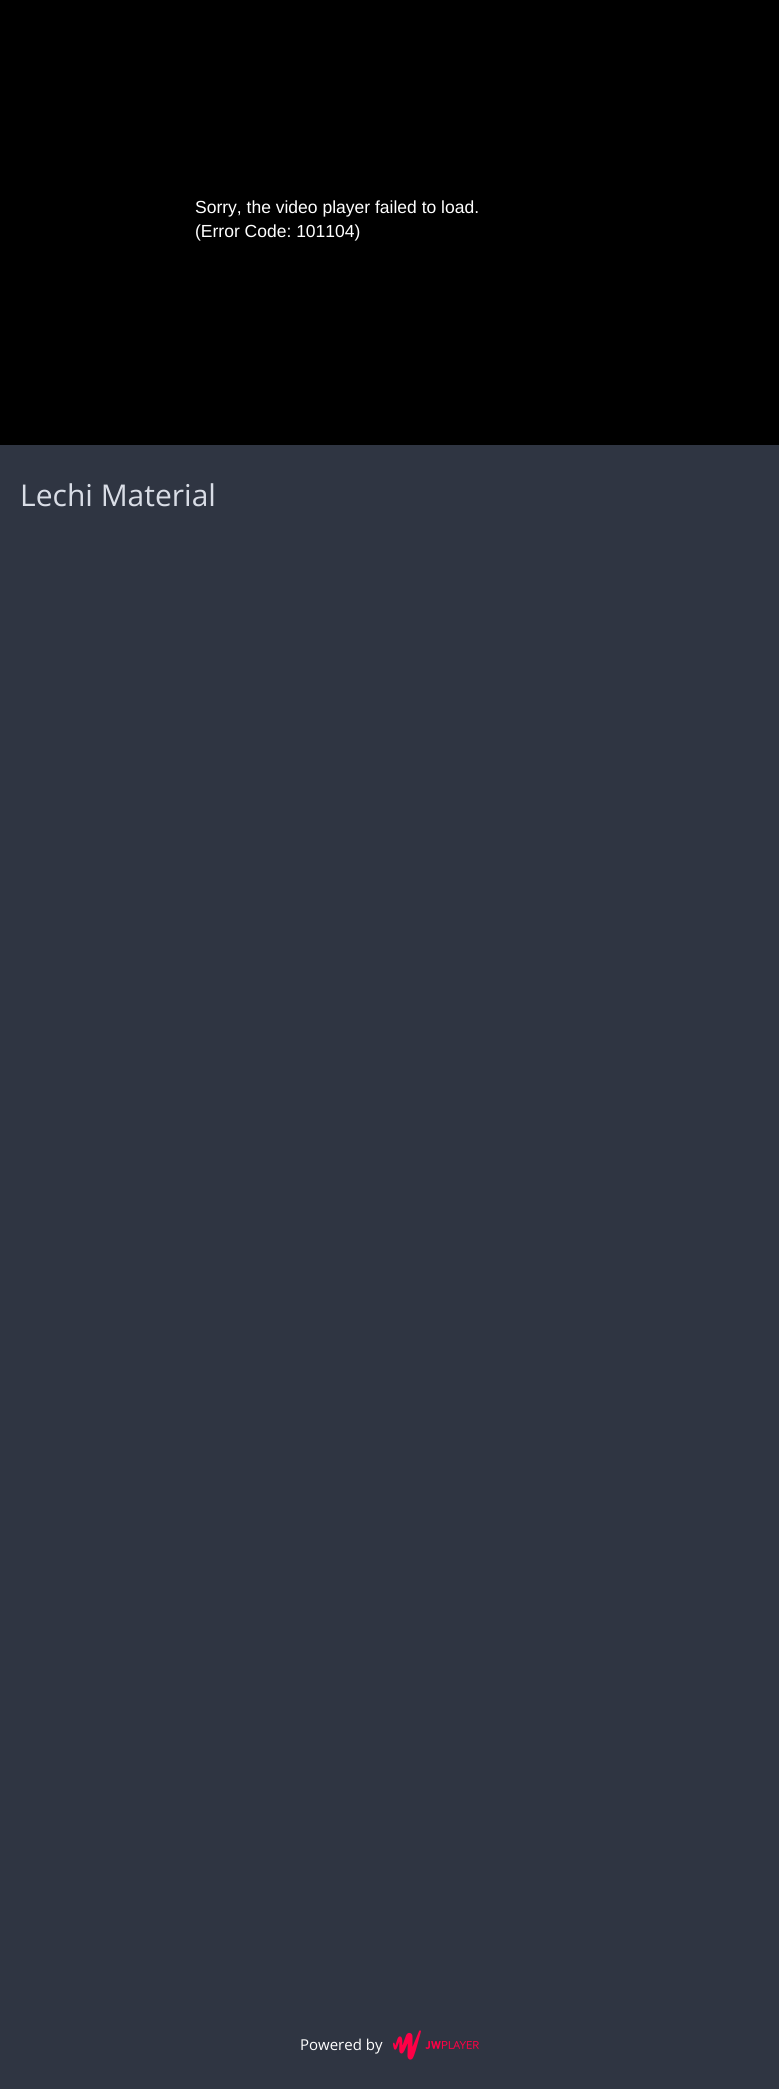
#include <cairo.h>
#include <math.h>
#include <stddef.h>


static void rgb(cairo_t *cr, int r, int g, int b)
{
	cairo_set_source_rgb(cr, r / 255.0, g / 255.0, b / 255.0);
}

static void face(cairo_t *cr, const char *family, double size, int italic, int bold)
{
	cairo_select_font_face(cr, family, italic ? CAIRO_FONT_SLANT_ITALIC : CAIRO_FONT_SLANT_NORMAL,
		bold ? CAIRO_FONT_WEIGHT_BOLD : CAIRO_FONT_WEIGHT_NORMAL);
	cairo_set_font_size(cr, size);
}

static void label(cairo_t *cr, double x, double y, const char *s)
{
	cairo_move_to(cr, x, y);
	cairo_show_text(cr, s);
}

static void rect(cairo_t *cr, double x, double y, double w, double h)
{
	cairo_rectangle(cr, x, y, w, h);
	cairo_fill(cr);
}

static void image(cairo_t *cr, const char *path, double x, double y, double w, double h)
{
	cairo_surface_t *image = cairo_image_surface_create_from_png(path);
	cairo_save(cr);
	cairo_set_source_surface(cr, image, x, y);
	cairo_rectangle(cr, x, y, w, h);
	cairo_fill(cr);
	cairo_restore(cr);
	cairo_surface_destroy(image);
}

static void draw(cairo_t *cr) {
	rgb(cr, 47, 53, 66);
	cairo_paint(cr);
	rgb(cr, 0, 0, 0);
	rect(cr, 0, 0, 779, 445);
	face(cr, "Liberation Sans", 17.5, 0, 0);
	rgb(cr, 255, 255, 255);
	label(cr, 195, 213, "Sorry, the video player failed to load.");
	label(cr, 195, 237, "(Error Code: 101104)");
	face(cr, "Open Sans", 30, 0, 0);
	rgb(cr, 217, 221, 230);
	label(cr, 20, 506, "Lechi Material");
	face(cr, "Open Sans", 15, 0, 0);
	rgb(cr, 255, 255, 255);
	label(cr, 300, 2050, "Powered by");
	image(cr, "image0.png", 393, 2030, 86, 30);
}

int main(void) {
	cairo_surface_t *surface = cairo_image_surface_create(CAIRO_FORMAT_RGB24, 779, 2089);
	cairo_t *cr = cairo_create(surface);
	cairo_font_options_t *options = cairo_font_options_create();
	cairo_font_options_set_hint_metrics(options, CAIRO_HINT_METRICS_OFF);
	cairo_font_options_set_hint_style(options, CAIRO_HINT_STYLE_NONE);
	cairo_set_font_options(cr, options);
	cairo_set_miter_limit(cr, 4);
	draw(cr);
	cairo_surface_write_to_png(surface, "render.png");
	cairo_font_options_destroy(options);
	cairo_destroy(cr);
	cairo_surface_destroy(surface);
	return 0;
}
